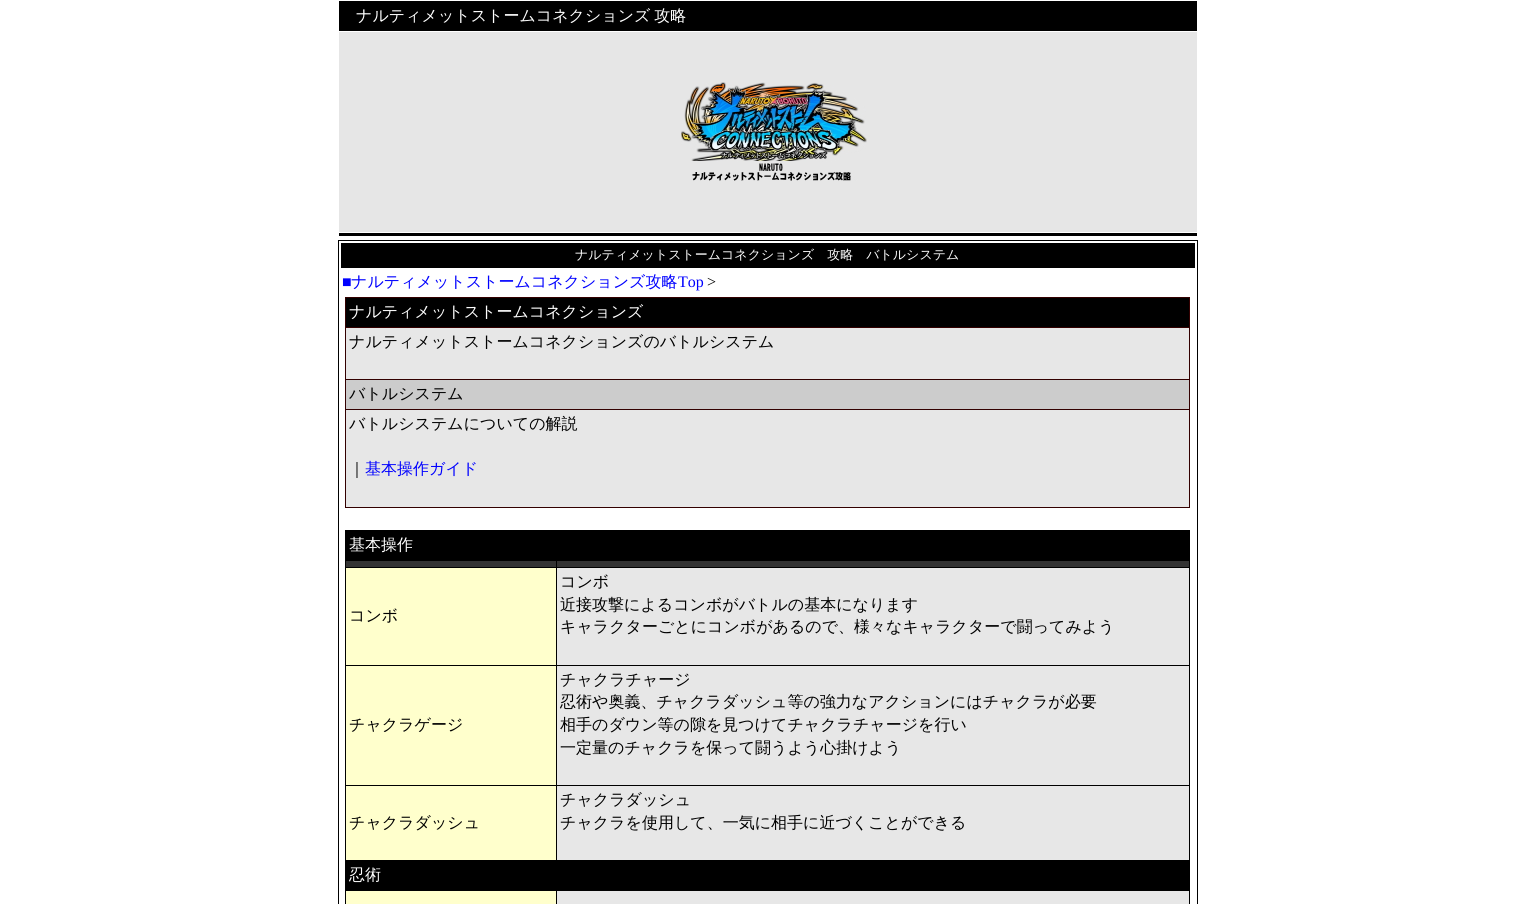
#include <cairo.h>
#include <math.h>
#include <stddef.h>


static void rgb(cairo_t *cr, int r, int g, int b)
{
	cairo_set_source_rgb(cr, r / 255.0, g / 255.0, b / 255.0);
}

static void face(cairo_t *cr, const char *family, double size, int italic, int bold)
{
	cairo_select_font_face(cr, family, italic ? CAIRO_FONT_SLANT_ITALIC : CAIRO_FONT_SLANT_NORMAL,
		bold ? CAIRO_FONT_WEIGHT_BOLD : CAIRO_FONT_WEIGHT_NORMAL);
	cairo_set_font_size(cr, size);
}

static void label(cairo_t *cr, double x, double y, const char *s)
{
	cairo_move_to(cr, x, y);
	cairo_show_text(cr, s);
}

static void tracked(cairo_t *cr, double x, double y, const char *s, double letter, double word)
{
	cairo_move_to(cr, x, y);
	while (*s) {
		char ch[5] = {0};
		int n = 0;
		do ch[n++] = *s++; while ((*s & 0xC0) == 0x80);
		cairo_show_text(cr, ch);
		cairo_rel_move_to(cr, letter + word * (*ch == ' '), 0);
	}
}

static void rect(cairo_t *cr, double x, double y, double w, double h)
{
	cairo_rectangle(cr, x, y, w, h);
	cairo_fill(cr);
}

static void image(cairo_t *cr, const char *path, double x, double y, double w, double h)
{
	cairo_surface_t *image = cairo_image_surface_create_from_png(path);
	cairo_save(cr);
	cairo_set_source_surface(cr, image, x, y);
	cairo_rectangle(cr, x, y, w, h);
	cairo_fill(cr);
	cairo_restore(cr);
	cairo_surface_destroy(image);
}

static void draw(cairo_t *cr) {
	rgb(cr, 255, 255, 255);
	cairo_paint(cr);
	rgb(cr, 0, 0, 0);
	rect(cr, 339, 1, 858, 30);
	face(cr, "WenQuanYi Zen Hei Medium", 16, 0, 0);
	rgb(cr, 255, 255, 255);
	tracked(cr, 356, 21, "ナルティメットストームコネクションズ 攻略", 0, -1);
	rgb(cr, 230, 230, 230);
	rect(cr, 339, 32, 858, 200);
	image(cr, "image0.png", 681, 82, 186, 99);
	rgb(cr, 0, 0, 0);
	rect(cr, 339, 233, 858, 3);
	cairo_rectangle(cr, 338.5, 240.5, 859, 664);
	cairo_set_line_width(cr, 1);
	cairo_stroke(cr);
	rect(cr, 341, 243, 854, 25);
	face(cr, "WenQuanYi Zen Hei Medium", 13, 0, 0);
	rgb(cr, 255, 255, 255);
	label(cr, 575, 259, "ナルティメットストームコネクションズ　攻略　バトルシステム");
	face(cr, "Liberation Serif", 16, 0, 0);
	rgb(cr, 0, 0, 255);
	label(cr, 342, 287, "■");
	face(cr, "WenQuanYi Zen Hei Medium", 16, 0, 0);
	label(cr, 351, 287, "ナルティメットストームコネクションズ攻略");
	face(cr, "Liberation Serif", 16, 0, 0);
	label(cr, 678, 287, "Top");
	rgb(cr, 0, 0, 0);
	label(cr, 707, 287, ">");
	rgb(cr, 51, 0, 0);
	rect(cr, 345, 297, 845, 211);
	rgb(cr, 0, 0, 0);
	rect(cr, 346, 298, 843, 29);
	face(cr, "WenQuanYi Zen Hei Medium", 16, 0, 0);
	rgb(cr, 255, 255, 255);
	label(cr, 349, 317, "ナルティメットストームコネクションズ");
	rgb(cr, 231, 231, 231);
	rect(cr, 346, 328, 843, 51);
	rgb(cr, 0, 0, 0);
	label(cr, 349, 347, "ナルティメットストームコネクションズのバトルシステム");
	rgb(cr, 204, 204, 204);
	rect(cr, 346, 380, 843, 29);
	rgb(cr, 0, 0, 0);
	label(cr, 349, 399, "バトルシステム");
	rgb(cr, 231, 231, 231);
	rect(cr, 346, 410, 843, 97);
	rgb(cr, 0, 0, 0);
	label(cr, 349, 429, "バトルシステムについての解説");
	label(cr, 349, 474, "｜");
	rgb(cr, 0, 0, 255);
	label(cr, 365, 474, "基本操作ガイド");
	rgb(cr, 0, 0, 0);
	rect(cr, 345, 530, 845, 374);
	rgb(cr, 255, 255, 255);
	label(cr, 349, 550, "基本操作");
	rgb(cr, 51, 51, 51);
	rect(cr, 346, 561, 210, 6);
	rect(cr, 557, 561, 632, 6);
	rgb(cr, 255, 255, 204);
	rect(cr, 346, 568, 210, 97);
	rgb(cr, 0, 0, 0);
	label(cr, 349, 621, "コンボ");
	rgb(cr, 231, 231, 231);
	rect(cr, 557, 568, 632, 97);
	rgb(cr, 0, 0, 0);
	label(cr, 560, 587, "コンボ");
	label(cr, 560, 610, "近接攻撃によるコンボがバトルの基本になります");
	label(cr, 560, 632, "キャラクターごとにコンボがあるので、様々なキャラクターで闘ってみよう");
	rgb(cr, 255, 255, 204);
	rect(cr, 346, 666, 210, 119);
	rgb(cr, 0, 0, 0);
	label(cr, 349, 730, "チャクラゲージ");
	rgb(cr, 231, 231, 231);
	rect(cr, 557, 666, 632, 119);
	rgb(cr, 0, 0, 0);
	label(cr, 560, 685, "チャクラチャージ");
	label(cr, 560, 707, "忍術や奥義、チャクラダッシュ等の強力なアクションにはチャクラが必要");
	label(cr, 560, 730, "相手のダウン等の隙を見つけてチャクラチャージを行い");
	label(cr, 560, 753, "一定量のチャクラを保って闘うよう心掛けよう");
	rgb(cr, 255, 255, 204);
	rect(cr, 346, 786, 210, 74);
	rgb(cr, 0, 0, 0);
	label(cr, 349, 828, "チャクラダッシュ");
	rgb(cr, 231, 231, 231);
	rect(cr, 557, 786, 632, 74);
	rgb(cr, 0, 0, 0);
	label(cr, 560, 805, "チャクラダッシュ");
	label(cr, 560, 828, "チャクラを使用して、一気に相手に近づくことができる");
	rgb(cr, 255, 255, 255);
	label(cr, 349, 880, "忍術");
	rgb(cr, 255, 255, 204);
	rect(cr, 346, 891, 210, 13);
	rgb(cr, 231, 231, 231);
	rect(cr, 557, 891, 632, 13);
}

int main(void) {
	cairo_surface_t *surface = cairo_image_surface_create(CAIRO_FORMAT_RGB24, 1535, 904);
	cairo_t *cr = cairo_create(surface);
	cairo_font_options_t *options = cairo_font_options_create();
	cairo_font_options_set_hint_metrics(options, CAIRO_HINT_METRICS_OFF);
	cairo_font_options_set_hint_style(options, CAIRO_HINT_STYLE_NONE);
	cairo_set_font_options(cr, options);
	cairo_set_miter_limit(cr, 4);
	draw(cr);
	cairo_surface_write_to_png(surface, "render.png");
	cairo_font_options_destroy(options);
	cairo_destroy(cr);
	cairo_surface_destroy(surface);
	return 0;
}
